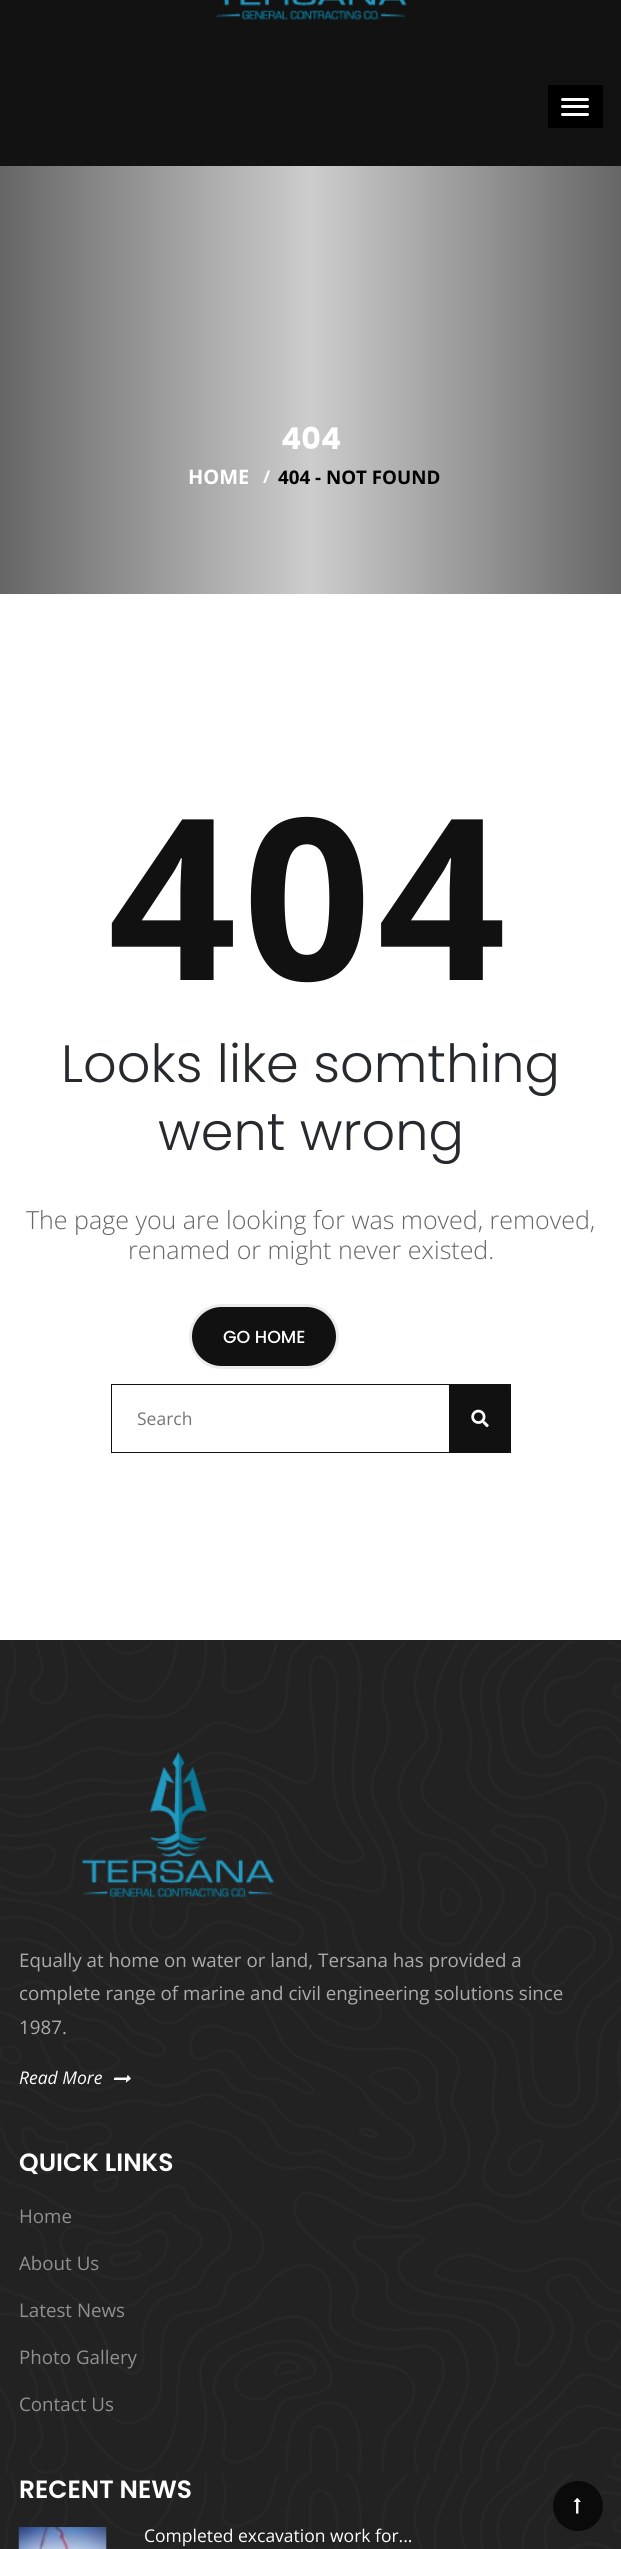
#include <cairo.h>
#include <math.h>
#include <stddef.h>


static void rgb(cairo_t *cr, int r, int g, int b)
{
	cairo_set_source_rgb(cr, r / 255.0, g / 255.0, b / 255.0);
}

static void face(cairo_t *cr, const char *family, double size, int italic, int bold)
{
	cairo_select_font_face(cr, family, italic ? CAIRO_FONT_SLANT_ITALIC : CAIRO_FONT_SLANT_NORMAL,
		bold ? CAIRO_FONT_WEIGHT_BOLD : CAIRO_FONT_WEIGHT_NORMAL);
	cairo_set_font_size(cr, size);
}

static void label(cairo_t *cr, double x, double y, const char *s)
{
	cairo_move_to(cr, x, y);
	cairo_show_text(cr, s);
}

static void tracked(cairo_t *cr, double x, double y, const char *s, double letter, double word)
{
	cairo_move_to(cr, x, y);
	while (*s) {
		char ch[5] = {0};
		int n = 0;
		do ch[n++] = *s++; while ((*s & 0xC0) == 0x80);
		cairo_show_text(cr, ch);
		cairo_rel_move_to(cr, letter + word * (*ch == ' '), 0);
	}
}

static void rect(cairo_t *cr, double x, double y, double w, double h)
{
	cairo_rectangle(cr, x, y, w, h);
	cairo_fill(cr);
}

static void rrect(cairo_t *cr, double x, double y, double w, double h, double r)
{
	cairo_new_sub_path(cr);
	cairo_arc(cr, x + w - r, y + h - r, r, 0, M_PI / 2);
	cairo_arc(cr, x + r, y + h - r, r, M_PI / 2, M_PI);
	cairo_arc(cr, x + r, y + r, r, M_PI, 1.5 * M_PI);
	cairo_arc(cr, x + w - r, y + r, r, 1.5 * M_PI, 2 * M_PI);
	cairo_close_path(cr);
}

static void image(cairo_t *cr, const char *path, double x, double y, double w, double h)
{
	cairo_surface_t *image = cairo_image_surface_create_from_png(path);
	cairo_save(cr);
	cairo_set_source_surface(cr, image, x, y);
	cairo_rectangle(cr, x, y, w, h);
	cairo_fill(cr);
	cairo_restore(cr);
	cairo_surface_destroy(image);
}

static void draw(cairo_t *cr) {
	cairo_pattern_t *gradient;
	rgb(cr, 255, 255, 255);
	cairo_paint(cr);
	rgb(cr, 18, 18, 18);
	rect(cr, 0, 0, 621, 166);
	image(cr, "image0.png", 215, 0, 192, 20);
	rgb(cr, 0, 0, 0);
	rect(cr, 548, 85, 55, 43);
	rgb(cr, 255, 255, 255);
	rrect(cr, 561, 98, 28, 3, 1.5);
	cairo_fill(cr);
	rrect(cr, 561, 105, 28, 3, 1.5);
	cairo_fill(cr);
	rrect(cr, 561, 113, 28, 3, 1.5);
	cairo_fill(cr);
	gradient = cairo_pattern_create_linear(0, 380, 621, 380);
	cairo_pattern_add_color_stop_rgba(gradient, 0, 0.4, 0.4, 0.4, 1);
	cairo_pattern_add_color_stop_rgba(gradient, 0.5, 0.804, 0.804, 0.804, 1);
	cairo_pattern_add_color_stop_rgba(gradient, 1, 0.4, 0.4, 0.4, 1);
	cairo_set_source(cr, gradient);
	cairo_pattern_destroy(gradient);
	rect(cr, 0, 166, 621, 428);
	face(cr, "Poppins", 30, 0, 1);
	rgb(cr, 255, 255, 255);
	label(cr, 281, 449, "404");
	face(cr, "Open Sans", 20, 0, 1);
	label(cr, 188, 484, "HOME");
	face(cr, "Open Sans", 17.5, 0, 1);
	label(cr, 263, 483, "/");
	face(cr, "Open Sans", 18.75, 0, 1);
	rgb(cr, 0, 0, 0);
	label(cr, 278, 484, "404 - NOT FOUND");
	face(cr, "Open Sans", 225, 0, 1);
	rgb(cr, 17, 17, 17);
	tracked(cr, 108, 980, "404", 6, 0);
	face(cr, "Poppins Light", 52.5, 0, 0);
	rgb(cr, 38, 41, 45);
	label(cr, 61, 1082, "Looks like somthing");
	label(cr, 158, 1150, "went wrong");
	face(cr, "Open Sans Light", 25, 0, 0);
	rgb(cr, 102, 102, 102);
	label(cr, 26, 1229, "The page you are looking for was moved, removed,");
	label(cr, 128, 1259, "renamed or might never existed.");
	rgb(cr, 17, 17, 17);
	rrect(cr, 190.5, 1305.5, 147, 62, 31);
	cairo_fill_preserve(cr);
	rgb(cr, 236, 236, 236);
	cairo_set_line_width(cr, 3);
	cairo_stroke(cr);
	face(cr, "Poppins Medium", 17.5, 0, 0);
	rgb(cr, 255, 255, 255);
	label(cr, 223, 1343, "GO HOME");
	cairo_rectangle(cr, 111.5, 1384.5, 399, 68);
	rgb(cr, 17, 17, 17);
	cairo_set_line_width(cr, 1);
	cairo_stroke(cr);
	face(cr, "Open Sans", 17.5, 0, 0);
	rgb(cr, 117, 117, 117);
	label(cr, 137, 1425, "Search");
	rgb(cr, 17, 17, 17);
	cairo_new_path(cr);
	cairo_move_to(cr, 449, 1384);
	cairo_line_to(cr, 507, 1384);
	cairo_curve_to(cr, 509, 1384, 511, 1386, 511, 1388);
	cairo_line_to(cr, 511, 1449);
	cairo_curve_to(cr, 511, 1451, 509, 1453, 507, 1453);
	cairo_line_to(cr, 449, 1453);
	cairo_close_path(cr);
	cairo_fill(cr);
	image(cr, "image1.png", 471, 1409, 18, 19);
	rgb(cr, 34, 34, 34);
	rect(cr, 0, 1640, 621, 909);
	image(cr, "image2.png", 0, 1641, 621, 908);
	image(cr, "image3.png", 82, 1752, 192, 146);
	face(cr, "Open Sans", 18.75, 0, 0);
	rgb(cr, 171, 171, 171);
	label(cr, 19, 1967, "Equally at home on water or land, Tersana has provided a");
	label(cr, 19, 2000, "complete range of marine and civil engineering solutions since");
	label(cr, 19, 2034, "1987.");
	face(cr, "Open Sans", 17.5, 1, 0);
	rgb(cr, 255, 255, 255);
	label(cr, 19, 2084, "Read More");
	image(cr, "image4.png", 113, 2075, 18, 8);
	face(cr, "Poppins SemiBold", 25, 0, 0);
	label(cr, 19, 2171, "QUICK LINKS");
	face(cr, "Open Sans", 18.75, 0, 0);
	rgb(cr, 144, 144, 144);
	label(cr, 19, 2223, "Home");
	label(cr, 19, 2270, "About Us");
	label(cr, 19, 2317, "Latest News");
	label(cr, 19, 2364, "Photo Gallery");
	label(cr, 19, 2411, "Contact Us");
	face(cr, "Poppins SemiBold", 25, 0, 0);
	rgb(cr, 255, 255, 255);
	label(cr, 19, 2498, "RECENT NEWS");
	image(cr, "image5.png", 18, 2527, 89, 22);
	face(cr, "Open Sans", 17.5, 0, 0);
	label(cr, 144, 2542, "Completed excavation work for...");
	rgb(cr, 10, 10, 10);
	cairo_new_path(cr);
	cairo_arc(cr, 578, 2506, 25, 0, 2 * M_PI);
	cairo_fill(cr);
	image(cr, "image6.png", 573, 2498, 8, 16);
}

int main(void) {
	cairo_surface_t *surface = cairo_image_surface_create(CAIRO_FORMAT_RGB24, 621, 2549);
	cairo_t *cr = cairo_create(surface);
	cairo_font_options_t *options = cairo_font_options_create();
	cairo_font_options_set_hint_metrics(options, CAIRO_HINT_METRICS_OFF);
	cairo_font_options_set_hint_style(options, CAIRO_HINT_STYLE_NONE);
	cairo_set_font_options(cr, options);
	cairo_set_miter_limit(cr, 4);
	draw(cr);
	cairo_surface_write_to_png(surface, "render.png");
	cairo_font_options_destroy(options);
	cairo_destroy(cr);
	cairo_surface_destroy(surface);
	return 0;
}
